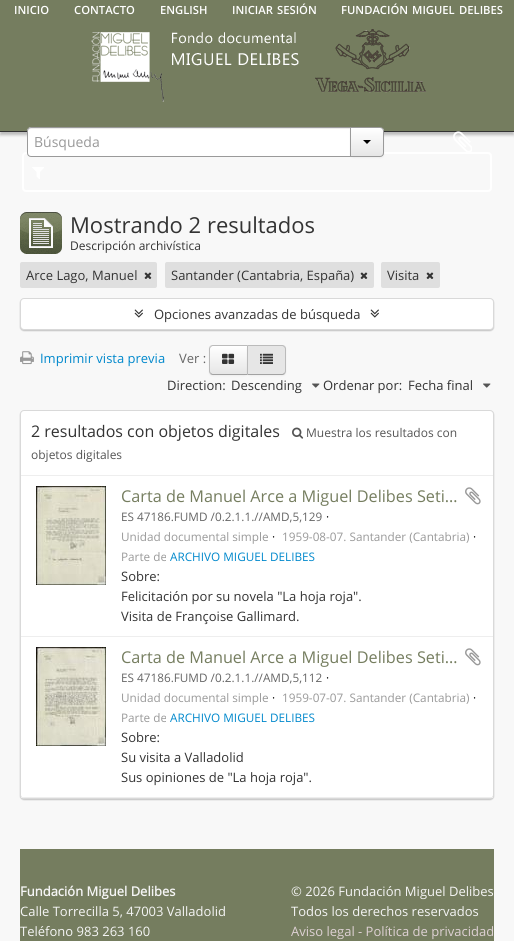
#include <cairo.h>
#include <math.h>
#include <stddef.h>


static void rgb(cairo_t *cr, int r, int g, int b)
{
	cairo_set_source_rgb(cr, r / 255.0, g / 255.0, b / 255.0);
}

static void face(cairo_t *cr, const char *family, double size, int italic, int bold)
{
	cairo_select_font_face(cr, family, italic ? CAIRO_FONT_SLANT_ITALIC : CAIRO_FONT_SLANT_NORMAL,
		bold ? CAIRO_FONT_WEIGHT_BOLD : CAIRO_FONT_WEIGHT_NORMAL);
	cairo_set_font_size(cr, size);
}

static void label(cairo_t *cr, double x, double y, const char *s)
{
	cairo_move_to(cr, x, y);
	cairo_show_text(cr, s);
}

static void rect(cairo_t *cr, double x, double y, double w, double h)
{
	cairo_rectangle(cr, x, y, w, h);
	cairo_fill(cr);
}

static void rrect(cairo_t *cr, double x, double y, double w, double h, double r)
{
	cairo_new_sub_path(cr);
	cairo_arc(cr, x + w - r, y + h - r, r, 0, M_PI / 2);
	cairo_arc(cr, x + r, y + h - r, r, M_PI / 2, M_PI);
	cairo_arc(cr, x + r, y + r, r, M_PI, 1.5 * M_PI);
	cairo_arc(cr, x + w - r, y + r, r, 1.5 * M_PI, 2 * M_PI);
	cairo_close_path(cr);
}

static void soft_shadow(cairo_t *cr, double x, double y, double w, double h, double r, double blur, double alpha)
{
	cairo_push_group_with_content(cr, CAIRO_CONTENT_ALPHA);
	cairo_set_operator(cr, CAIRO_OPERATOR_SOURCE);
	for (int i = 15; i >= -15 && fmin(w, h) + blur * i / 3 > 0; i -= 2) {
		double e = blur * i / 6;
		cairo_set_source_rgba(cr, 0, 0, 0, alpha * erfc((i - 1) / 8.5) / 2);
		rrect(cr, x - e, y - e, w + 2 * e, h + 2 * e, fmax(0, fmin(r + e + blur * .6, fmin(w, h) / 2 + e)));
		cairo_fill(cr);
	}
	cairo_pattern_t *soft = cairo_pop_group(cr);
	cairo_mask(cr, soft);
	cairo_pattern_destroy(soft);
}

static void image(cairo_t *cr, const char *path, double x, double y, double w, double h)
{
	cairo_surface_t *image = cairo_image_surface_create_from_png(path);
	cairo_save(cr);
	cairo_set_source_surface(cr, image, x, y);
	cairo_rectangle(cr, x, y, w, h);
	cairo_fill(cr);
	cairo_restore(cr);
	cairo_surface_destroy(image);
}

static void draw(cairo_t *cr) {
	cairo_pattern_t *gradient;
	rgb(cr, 248, 248, 248);
	cairo_paint(cr);
	rgb(cr, 0, 0, 0);
	soft_shadow(cr, 0, -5, 514, 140, 0, 1.5, 0.25);
	rgb(cr, 117, 125, 95);
	rect(cr, 0, 0, 514, 131);
	rgb(cr, 51, 51, 51);
	rect(cr, 0, 131, 514, 1);
	face(cr, "Open Sans SemiBold", 11.25, 0, 0);
	rgb(cr, 255, 255, 255);
	label(cr, 14, 14, "INICIO");
	label(cr, 74, 14, "CONTACTO");
	label(cr, 160, 14, "ENGLISH");
	label(cr, 232, 14, "INICIAR");
	label(cr, 277, 14, "SESIÓN");
	label(cr, 341, 14, "FUNDACIÓN");
	label(cr, 412, 14, "MIGUEL");
	label(cr, 459, 14, "DELIBES");
	image(cr, "image0.png", 91, 32, 208, 70);
	image(cr, "image1.png", 315, 29, 111, 64);
	rrect(cr, 23, 153, 468, 38, 3);
	cairo_stroke(cr);
	cairo_new_path(cr);
	cairo_move_to(cr, 31, 127);
	cairo_line_to(cr, 351, 127);
	cairo_line_to(cr, 351, 157);
	cairo_line_to(cr, 31, 157);
	cairo_curve_to(cr, 29, 157, 27, 155, 27, 153);
	cairo_line_to(cr, 27, 131);
	cairo_curve_to(cr, 27, 129, 29, 127, 31, 127);
	cairo_close_path(cr);
	cairo_fill(cr);
	rgb(cr, 236, 236, 236);
	cairo_new_path(cr);
	cairo_move_to(cr, 31, 129);
	cairo_line_to(cr, 350, 129);
	cairo_line_to(cr, 350, 128);
	cairo_line_to(cr, 31, 128);
	cairo_curve_to(cr, 29, 128, 28, 130, 28, 132);
	cairo_curve_to(cr, 28, 130, 29, 129, 31, 129);
	cairo_close_path(cr);
	cairo_fill(cr);
	cairo_new_path(cr);
	cairo_move_to(cr, 31, 127.5);
	cairo_line_to(cr, 350.5, 127.5);
	cairo_line_to(cr, 350.5, 156.5);
	cairo_line_to(cr, 31, 156.5);
	cairo_curve_to(cr, 29, 156.5, 27.5, 155, 27.5, 153);
	cairo_line_to(cr, 27.5, 131);
	cairo_curve_to(cr, 27.5, 129, 29, 127.5, 31, 127.5);
	cairo_close_path(cr);
	rgb(cr, 154, 154, 154);
	cairo_set_line_width(cr, 1);
	cairo_stroke(cr);
	face(cr, "Open Sans", 14, 0, 0);
	rgb(cr, 153, 153, 153);
	label(cr, 34, 147, "Búsqueda");
	rgb(cr, 0, 0, 0);
	soft_shadow(cr, 350, 128, 34, 30, 4, 1, 0.05);
	cairo_save(cr);
	cairo_new_path(cr);
	cairo_move_to(cr, 350, 127);
	cairo_line_to(cr, 380, 127);
	cairo_curve_to(cr, 382, 127, 384, 129, 384, 131);
	cairo_line_to(cr, 384, 153);
	cairo_curve_to(cr, 384, 155, 382, 157, 380, 157);
	cairo_line_to(cr, 350, 157);
	cairo_close_path(cr);
	cairo_clip(cr);
	gradient = cairo_pattern_create_linear(367, 128, 367, 156);
	cairo_pattern_add_color_stop_rgba(gradient, 0, 1, 1, 1, 1);
	cairo_pattern_add_color_stop_rgba(gradient, 1, 0.902, 0.902, 0.902, 1);
	cairo_set_source(cr, gradient);
	cairo_pattern_destroy(gradient);
	rect(cr, 351, 128, 33, 28);
	cairo_restore(cr);
	cairo_new_path(cr);
	cairo_move_to(cr, 350.5, 127.5);
	cairo_line_to(cr, 380, 127.5);
	cairo_curve_to(cr, 382, 127.5, 383.5, 129, 383.5, 131);
	cairo_line_to(cr, 383.5, 153);
	cairo_curve_to(cr, 383.5, 155, 382, 156.5, 380, 156.5);
	cairo_line_to(cr, 350.5, 156.5);
	cairo_close_path(cr);
	rgb(cr, 154, 154, 154);
	cairo_stroke(cr);
	rgb(cr, 0, 0, 0);
	cairo_new_path(cr);
	cairo_move_to(cr, 363, 140);
	cairo_line_to(cr, 371, 140);
	cairo_line_to(cr, 367, 144);
	cairo_close_path(cr);
	cairo_fill(cr);
	image(cr, "image2.png", 453, 131, 19, 21);
	image(cr, "image3.png", 32, 167, 12, 12);
	image(cr, "image4.png", 20, 212, 42, 42);
	face(cr, "Open Sans", 22, 0, 0);
	rgb(cr, 51, 51, 51);
	label(cr, 70, 233, "Mostrando 2 resultados");
	face(cr, "Open Sans", 12, 0, 0);
	label(cr, 70, 250, "Descripción archivística");
	rgb(cr, 223, 223, 223);
	rrect(cr, 20, 262, 137, 26, 2);
	cairo_fill(cr);
	face(cr, "Open Sans", 13, 0, 0);
	rgb(cr, 51, 51, 51);
	label(cr, 26, 280, "Arce Lago, Manuel");
	image(cr, "image5.png", 144, 272, 8, 7);
	rgb(cr, 223, 223, 223);
	rrect(cr, 165, 262, 209, 26, 2);
	cairo_fill(cr);
	rgb(cr, 51, 51, 51);
	label(cr, 171, 280, "Santander (Cantabria, España)");
	image(cr, "image5.png", 360, 272, 8, 7);
	rgb(cr, 223, 223, 223);
	rrect(cr, 381, 262, 59, 26, 2);
	cairo_fill(cr);
	rgb(cr, 51, 51, 51);
	label(cr, 387, 280, "Visita");
	image(cr, "image5.png", 426, 272, 8, 7);
	rgb(cr, 0, 0, 0);
	soft_shadow(cr, 20, 299, 474, 32, 4, 0.5, 0.2);
	rgb(cr, 255, 255, 255);
	rrect(cr, 20.5, 298.5, 473, 31, 3.5);
	cairo_fill_preserve(cr);
	rgb(cr, 217, 217, 217);
	cairo_stroke(cr);
	image(cr, "image6.png", 134, 309, 9, 9);
	rgb(cr, 51, 51, 51);
	label(cr, 154, 319, "Opciones avanzadas de búsqueda");
	image(cr, "image6.png", 370, 309, 9, 9);
	image(cr, "image7.png", 20, 351, 14, 14);
	rgb(cr, 0, 136, 204);
	label(cr, 40, 363, "Imprimir vista previa");
	rgb(cr, 102, 102, 102);
	label(cr, 179, 363, "Ver :");
	rgb(cr, 0, 0, 0);
	soft_shadow(cr, 209, 346, 39, 30, 4, 1, 0.05);
	cairo_save(cr);
	cairo_new_path(cr);
	cairo_move_to(cr, 213, 345);
	cairo_line_to(cr, 248, 345);
	cairo_line_to(cr, 248, 375);
	cairo_line_to(cr, 213, 375);
	cairo_curve_to(cr, 211, 375, 209, 373, 209, 371);
	cairo_line_to(cr, 209, 349);
	cairo_curve_to(cr, 209, 347, 211, 345, 213, 345);
	cairo_close_path(cr);
	cairo_clip(cr);
	gradient = cairo_pattern_create_linear(229, 346, 229, 374);
	cairo_pattern_add_color_stop_rgba(gradient, 0, 1, 1, 1, 1);
	cairo_pattern_add_color_stop_rgba(gradient, 1, 0.902, 0.902, 0.902, 1);
	cairo_set_source(cr, gradient);
	cairo_pattern_destroy(gradient);
	rect(cr, 209, 346, 38, 28);
	cairo_restore(cr);
	rgb(cr, 187, 187, 187);
	cairo_new_path(cr);
	cairo_move_to(cr, 213, 345);
	cairo_curve_to(cr, 212, 345, 211, 345.5, 210, 346);
	cairo_line_to(cr, 211, 347);
	cairo_curve_to(cr, 211.5, 346.5, 212, 346, 213, 346);
	cairo_line_to(cr, 247, 346);
	cairo_line_to(cr, 248, 345);
	cairo_close_path(cr);
	cairo_fill(cr);
	rgb(cr, 162, 162, 162);
	cairo_new_path(cr);
	cairo_move_to(cr, 248, 375);
	cairo_line_to(cr, 247, 374);
	cairo_line_to(cr, 213, 374);
	cairo_curve_to(cr, 212, 374, 211.5, 373.5, 211, 373);
	cairo_line_to(cr, 210, 374);
	cairo_curve_to(cr, 211, 374.5, 212, 375, 213, 375);
	cairo_close_path(cr);
	cairo_fill(cr);
	rgb(cr, 187, 187, 187);
	cairo_new_path(cr);
	cairo_move_to(cr, 209, 349);
	cairo_line_to(cr, 209, 371);
	cairo_curve_to(cr, 209, 372, 209.5, 373, 210, 374);
	cairo_line_to(cr, 211, 373);
	cairo_curve_to(cr, 210.5, 372.5, 210, 372, 210, 371);
	cairo_line_to(cr, 210, 349);
	cairo_curve_to(cr, 210, 348, 210.5, 347.5, 211, 347);
	cairo_line_to(cr, 210, 346);
	cairo_curve_to(cr, 209.5, 347, 209, 348, 209, 349);
	cairo_close_path(cr);
	cairo_fill(cr);
	image(cr, "image8.png", 222, 353, 13, 11);
	rgb(cr, 0, 0, 0);
	soft_shadow(cr, 247, 346, 39, 30, 4, 1, 0.05);
	rgb(cr, 230, 230, 230);
	cairo_new_path(cr);
	cairo_move_to(cr, 247, 345);
	cairo_line_to(cr, 282, 345);
	cairo_curve_to(cr, 284, 345, 286, 347, 286, 349);
	cairo_line_to(cr, 286, 371);
	cairo_curve_to(cr, 286, 373, 284, 375, 282, 375);
	cairo_line_to(cr, 247, 375);
	cairo_close_path(cr);
	cairo_fill(cr);
	rgb(cr, 187, 187, 187);
	cairo_new_path(cr);
	cairo_move_to(cr, 247, 345);
	cairo_line_to(cr, 248, 346);
	cairo_line_to(cr, 282, 346);
	cairo_curve_to(cr, 283, 346, 283.5, 346.5, 284, 347);
	cairo_line_to(cr, 285, 346);
	cairo_curve_to(cr, 284, 345.5, 283, 345, 282, 345);
	cairo_close_path(cr);
	cairo_fill(cr);
	cairo_new_path(cr);
	cairo_move_to(cr, 286, 371);
	cairo_line_to(cr, 286, 349);
	cairo_curve_to(cr, 286, 348, 285.5, 347, 285, 346);
	cairo_line_to(cr, 284, 347);
	cairo_curve_to(cr, 284.5, 347.5, 285, 348, 285, 349);
	cairo_line_to(cr, 285, 371);
	cairo_curve_to(cr, 285, 372, 284.5, 372.5, 284, 373);
	cairo_line_to(cr, 285, 374);
	cairo_curve_to(cr, 285.5, 373, 286, 372, 286, 371);
	cairo_close_path(cr);
	cairo_fill(cr);
	rgb(cr, 162, 162, 162);
	cairo_new_path(cr);
	cairo_move_to(cr, 282, 375);
	cairo_curve_to(cr, 283, 375, 284, 374.5, 285, 374);
	cairo_line_to(cr, 284, 373);
	cairo_curve_to(cr, 283.5, 373.5, 283, 374, 282, 374);
	cairo_line_to(cr, 248, 374);
	cairo_line_to(cr, 247, 375);
	cairo_close_path(cr);
	cairo_fill(cr);
	rgb(cr, 187, 187, 187);
	cairo_new_path(cr);
	cairo_move_to(cr, 247, 345);
	cairo_line_to(cr, 247, 375);
	cairo_line_to(cr, 248, 374);
	cairo_line_to(cr, 248, 346);
	cairo_close_path(cr);
	cairo_fill(cr);
	image(cr, "image9.png", 260, 353, 13, 11);
	rgb(cr, 51, 51, 51);
	label(cr, 167, 390, "Direction:");
	label(cr, 231, 390, "Descending");
	image(cr, "image10.png", 312, 383, 8, 5);
	label(cr, 323, 390, "Ordenar por:");
	label(cr, 408, 390, "Fecha final");
	image(cr, "image10.png", 483, 383, 8, 5);
	rgb(cr, 0, 0, 0);
	soft_shadow(cr, 20, 411, 474, 389, 4, 0.5, 0.2);
	rgb(cr, 255, 255, 255);
	rrect(cr, 20.5, 410.5, 473, 388, 3.5);
	cairo_fill_preserve(cr);
	rgb(cr, 217, 217, 217);
	cairo_stroke(cr);
	rgb(cr, 238, 238, 238);
	rect(cr, 21, 475, 472, 1);
	face(cr, "Open Sans", 16, 0, 0);
	rgb(cr, 51, 51, 51);
	label(cr, 31, 437, "2 resultados con objetos digitales");
	image(cr, "image11.png", 292, 427, 12, 12);
	face(cr, "Open Sans", 12, 0, 0);
	rgb(cr, 85, 85, 85);
	label(cr, 306, 437, "Muestra los resultados con");
	label(cr, 31, 459, "objetos digitales");
	rgb(cr, 238, 238, 238);
	rect(cr, 21, 636, 472, 1);
	image(cr, "image12.png", 36, 486, 70, 99);
	face(cr, "Open Sans", 16.25, 0, 0);
	rgb(cr, 117, 125, 95);
	label(cr, 121, 502, "Carta de Manuel Arce a Miguel Delibes Seti…");
	image(cr, "image13.png", 465, 487, 16, 18);
	face(cr, "Open Sans", 11.75, 0, 0);
	rgb(cr, 102, 102, 102);
	label(cr, 121, 521, "ES 47186.FUMD /0.2.1.1.//AMD,5,129");
	rgb(cr, 0, 0, 0);
	label(cr, 326, 521, "·");
	rgb(cr, 153, 153, 153);
	label(cr, 121, 541, "Unidad documental simple");
	rgb(cr, 0, 0, 0);
	label(cr, 272, 541, "·");
	rgb(cr, 153, 153, 153);
	label(cr, 282, 541, "1959-08-07. Santander (Cantabria)");
	rgb(cr, 0, 0, 0);
	label(cr, 473, 541, "·");
	rgb(cr, 153, 153, 153);
	label(cr, 121, 561, "Parte de");
	rgb(cr, 0, 136, 204);
	label(cr, 170, 561, "ARCHIVO MIGUEL DELIBES");
	face(cr, "Open Sans", 13, 0, 0);
	rgb(cr, 51, 51, 51);
	label(cr, 121, 581, "Sobre:");
	label(cr, 121, 601, "Felicitación por su novela \"La hoja roja\".");
	label(cr, 121, 621, "Visita de Françoise Gallimard.");
	rgb(cr, 238, 238, 238);
	rect(cr, 21, 797, 472, 1);
	image(cr, "image14.png", 36, 647, 70, 99);
	face(cr, "Open Sans", 16.25, 0, 0);
	rgb(cr, 117, 125, 95);
	label(cr, 121, 663, "Carta de Manuel Arce a Miguel Delibes Seti…");
	image(cr, "image13.png", 465, 648, 16, 18);
	face(cr, "Open Sans", 11.75, 0, 0);
	rgb(cr, 102, 102, 102);
	label(cr, 121, 682, "ES 47186.FUMD /0.2.1.1.//AMD,5,112");
	rgb(cr, 0, 0, 0);
	label(cr, 326, 682, "·");
	rgb(cr, 153, 153, 153);
	label(cr, 121, 702, "Unidad documental simple");
	rgb(cr, 0, 0, 0);
	label(cr, 272, 702, "·");
	rgb(cr, 153, 153, 153);
	label(cr, 282, 702, "1959-07-07. Santander (Cantabria)");
	rgb(cr, 0, 0, 0);
	label(cr, 473, 702, "·");
	rgb(cr, 153, 153, 153);
	label(cr, 121, 722, "Parte de");
	rgb(cr, 0, 136, 204);
	label(cr, 170, 722, "ARCHIVO MIGUEL DELIBES");
	face(cr, "Open Sans", 13, 0, 0);
	rgb(cr, 51, 51, 51);
	label(cr, 121, 742, "Sobre:");
	label(cr, 121, 762, "Su visita a Valladolid");
	label(cr, 121, 782, "Sus opiniones de \"La hoja roja\".");
	rgb(cr, 117, 125, 95);
	rect(cr, 20, 849, 474, 92);
	face(cr, "Open Sans", 13, 0, 1);
	rgb(cr, 245, 245, 245);
	label(cr, 20, 896, "Fundación Miguel Delibes");
	face(cr, "Open Sans", 13, 0, 0);
	label(cr, 20, 916, "Calle Torrecilla 5, 47003 Valladolid");
	label(cr, 20, 936, "Teléfono 983 263 160");
	label(cr, 291, 896, "© 2026 Fundación Miguel Delibes");
	label(cr, 291, 916, "Todos los derechos reservados");
	rgb(cr, 222, 209, 212);
	label(cr, 291, 936, "Aviso legal - Política de privacidad");
}

int main(void) {
	cairo_surface_t *surface = cairo_image_surface_create(CAIRO_FORMAT_RGB24, 514, 941);
	cairo_t *cr = cairo_create(surface);
	cairo_font_options_t *options = cairo_font_options_create();
	cairo_font_options_set_hint_metrics(options, CAIRO_HINT_METRICS_OFF);
	cairo_font_options_set_hint_style(options, CAIRO_HINT_STYLE_NONE);
	cairo_set_font_options(cr, options);
	cairo_set_miter_limit(cr, 4);
	draw(cr);
	cairo_surface_write_to_png(surface, "render.png");
	cairo_font_options_destroy(options);
	cairo_destroy(cr);
	cairo_surface_destroy(surface);
	return 0;
}
